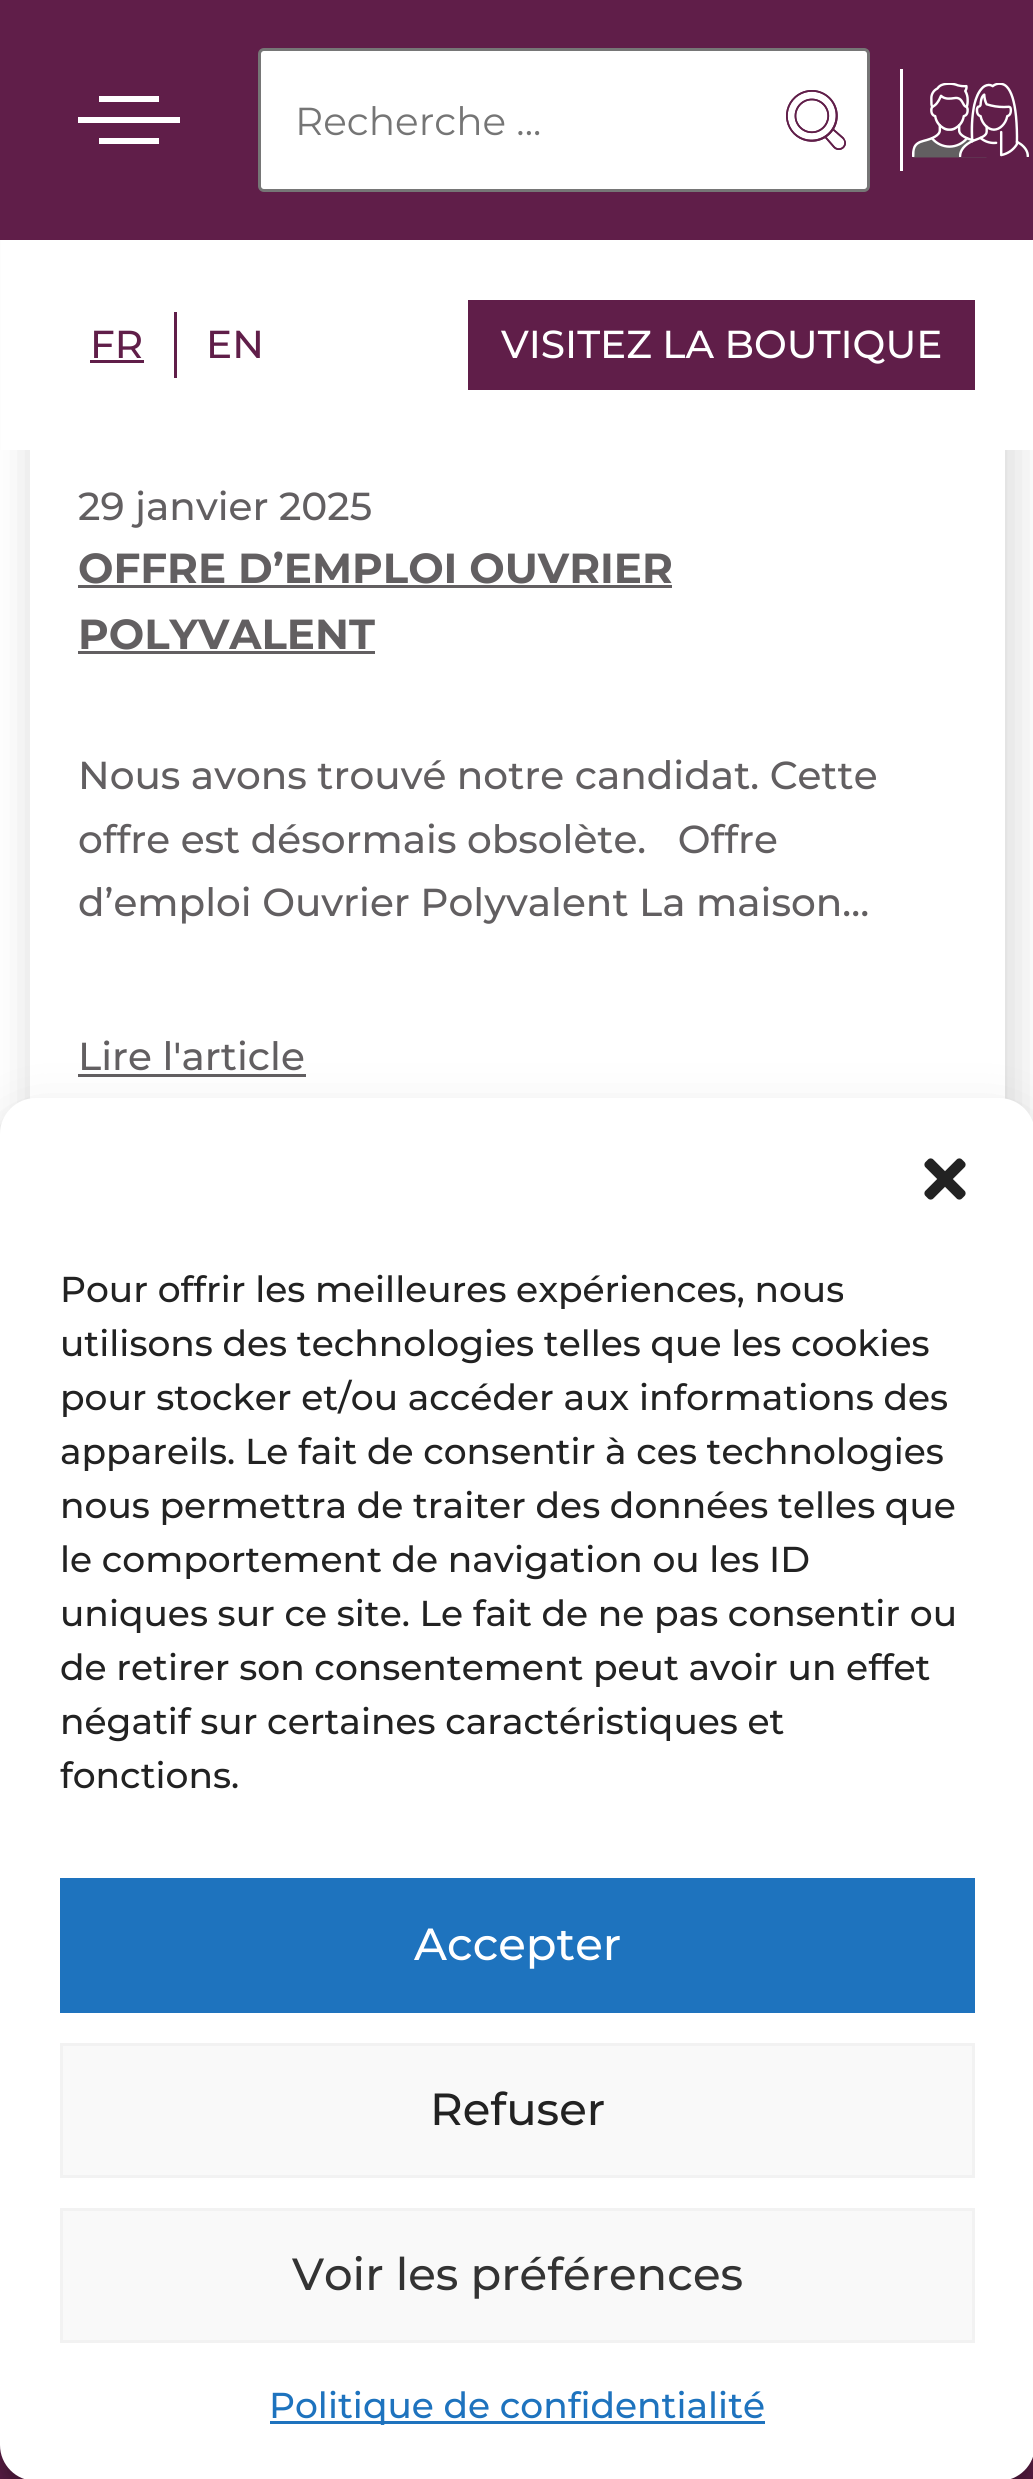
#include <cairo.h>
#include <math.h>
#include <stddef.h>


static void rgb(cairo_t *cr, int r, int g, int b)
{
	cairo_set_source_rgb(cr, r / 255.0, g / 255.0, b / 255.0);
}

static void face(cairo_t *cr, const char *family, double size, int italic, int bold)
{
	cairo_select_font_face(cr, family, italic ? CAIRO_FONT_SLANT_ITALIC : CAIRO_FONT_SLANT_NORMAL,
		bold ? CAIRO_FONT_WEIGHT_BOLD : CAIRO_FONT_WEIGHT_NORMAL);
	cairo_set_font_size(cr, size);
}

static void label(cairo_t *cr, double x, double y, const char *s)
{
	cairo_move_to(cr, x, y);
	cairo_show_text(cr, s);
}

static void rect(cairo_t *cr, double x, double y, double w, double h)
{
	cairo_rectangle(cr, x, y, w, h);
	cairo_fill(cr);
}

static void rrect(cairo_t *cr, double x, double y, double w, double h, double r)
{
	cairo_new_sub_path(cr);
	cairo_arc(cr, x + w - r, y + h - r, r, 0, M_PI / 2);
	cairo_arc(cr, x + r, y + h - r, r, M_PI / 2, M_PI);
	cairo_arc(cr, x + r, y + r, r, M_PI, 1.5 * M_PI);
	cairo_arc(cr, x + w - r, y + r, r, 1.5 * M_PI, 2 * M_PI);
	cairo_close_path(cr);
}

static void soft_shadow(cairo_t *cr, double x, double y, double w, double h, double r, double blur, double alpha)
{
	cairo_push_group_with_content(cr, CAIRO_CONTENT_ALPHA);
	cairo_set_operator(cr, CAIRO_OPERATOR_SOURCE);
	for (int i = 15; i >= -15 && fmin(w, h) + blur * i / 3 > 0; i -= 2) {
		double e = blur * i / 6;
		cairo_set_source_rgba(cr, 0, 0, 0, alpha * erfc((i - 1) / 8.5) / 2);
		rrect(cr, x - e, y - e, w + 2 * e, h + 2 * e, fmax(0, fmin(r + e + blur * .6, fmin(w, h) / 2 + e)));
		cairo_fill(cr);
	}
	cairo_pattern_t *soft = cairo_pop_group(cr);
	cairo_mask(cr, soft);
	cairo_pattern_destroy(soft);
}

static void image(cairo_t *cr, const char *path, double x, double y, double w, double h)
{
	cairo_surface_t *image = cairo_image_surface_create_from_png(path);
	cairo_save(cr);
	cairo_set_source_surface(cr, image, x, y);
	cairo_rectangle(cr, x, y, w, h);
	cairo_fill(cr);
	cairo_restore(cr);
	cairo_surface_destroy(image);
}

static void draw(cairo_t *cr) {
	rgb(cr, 255, 255, 255);
	cairo_paint(cr);
	cairo_save(cr);
	cairo_set_fill_rule(cr, CAIRO_FILL_RULE_EVEN_ODD);
	cairo_new_path(cr);
	cairo_move_to(cr, 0, 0);
	cairo_line_to(cr, 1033, 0);
	cairo_line_to(cr, 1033, 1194);
	cairo_line_to(cr, 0, 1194);
	cairo_close_path(cr);
	cairo_move_to(cr, 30, -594);
	cairo_line_to(cr, 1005, -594);
	cairo_line_to(cr, 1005, 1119);
	cairo_line_to(cr, 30, 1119);
	cairo_close_path(cr);
	cairo_clip(cr);
	rgb(cr, 0, 0, 0);
	soft_shadow(cr, 36, -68, 975, 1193, 0, 22.5, 0.17);
	cairo_restore(cr);
	rgb(cr, 255, 255, 255);
	rect(cr, 1, 240, 1032, 210);
	rgb(cr, 96, 30, 73);
	rect(cr, 0, 0, 1033, 240);
	rgb(cr, 255, 255, 255);
	rect(cr, 99, 96, 60, 6);
	rect(cr, 78, 117, 102, 6);
	rect(cr, 99, 138, 60, 6);
	rrect(cr, 259.5, 49.5, 609, 141, 4.5);
	cairo_fill_preserve(cr);
	rgb(cr, 118, 118, 118);
	cairo_set_line_width(cr, 3);
	cairo_stroke(cr);
	face(cr, "Montserrat", 39, 0, 0);
	rgb(cr, 117, 117, 117);
	label(cr, 295, 135, "Recherche ...");
	image(cr, "image0.png", 786, 90, 60, 60);
	rgb(cr, 255, 255, 255);
	rect(cr, 900, 69, 3, 102);
	image(cr, "image1.png", 912, 83, 117, 75);
	face(cr, "Montserrat Medium", 39, 0, 0);
	rgb(cr, 96, 30, 73);
	label(cr, 90, 358, "FR");
	rect(cr, 90, 360, 54, 3);
	rect(cr, 174, 312, 3, 66);
	label(cr, 206, 358, "EN");
	rect(cr, 468, 300, 507, 90);
	rgb(cr, 255, 255, 255);
	label(cr, 501, 358, "VISITEZ LA BOUTIQUE");
	rgb(cr, 98, 95, 97);
	label(cr, 78, 520, "29 janvier 2025");
	face(cr, "Montserrat", 42, 0, 1);
	label(cr, 78, 583, "OFFRE D’EMPLOI OUVRIER");
	rect(cr, 78, 585, 594, 3);
	label(cr, 78, 649, "POLYVALENT");
	rect(cr, 78, 651, 297, 3);
	face(cr, "Montserrat Medium", 39, 0, 0);
	label(cr, 78, 789, "Nous avons trouvé notre candidat. Cette");
	label(cr, 78, 853, "offre est désormais obsolète.   Offre");
	label(cr, 78, 916, "d’emploi Ouvrier Polyvalent La maison…");
	label(cr, 78, 1070, "Lire l'article");
	rect(cr, 78, 1074, 228, 3);
	rgb(cr, 96, 30, 73);
	rect(cr, 0, 2445, 1033, 34);
	rgb(cr, 0, 0, 0);
	soft_shadow(cr, 0, 1116, 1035, 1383, 36, 9, 0.23);
	soft_shadow(cr, 0, 1128, 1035, 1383, 36, 30, 0.19);
	rgb(cr, 255, 255, 255);
	rrect(cr, 0, 1098, 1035, 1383, 36);
	cairo_fill(cr);
	image(cr, "image2.png", 924, 1158, 42, 42);
	face(cr, "Montserrat Medium", 36, 0, 0);
	rgb(cr, 34, 34, 34);
	label(cr, 60, 1302, "Pour offrir les meilleures expériences, nous");
	label(cr, 60, 1356, "utilisons des technologies telles que les cookies");
	label(cr, 60, 1410, "pour stocker et/ou accéder aux informations des");
	label(cr, 60, 1464, "appareils. Le fait de consentir à ces technologies");
	label(cr, 60, 1518, "nous permettra de traiter des données telles que");
	label(cr, 60, 1572, "le comportement de navigation ou les ID");
	label(cr, 60, 1626, "uniques sur ce site. Le fait de ne pas consentir ou");
	label(cr, 60, 1680, "de retirer son consentement peut avoir un effet");
	label(cr, 60, 1734, "négatif sur certaines caractéristiques et");
	label(cr, 60, 1788, "fonctions.");
	rgb(cr, 30, 115, 190);
	rect(cr, 60, 1878, 915, 135);
	face(cr, "Montserrat Medium", 45, 0, 0);
	rgb(cr, 255, 255, 255);
	label(cr, 414, 1960, "Accepter");
	rgb(cr, 249, 249, 249);
	cairo_rectangle(cr, 61.5, 2044.5, 912, 132);
	cairo_fill_preserve(cr);
	rgb(cr, 242, 242, 242);
	cairo_stroke(cr);
	rgb(cr, 34, 34, 34);
	label(cr, 430, 2125, "Refuser");
	rgb(cr, 249, 249, 249);
	cairo_rectangle(cr, 61.5, 2209.5, 912, 132);
	cairo_fill_preserve(cr);
	rgb(cr, 242, 242, 242);
	cairo_stroke(cr);
	rgb(cr, 51, 51, 51);
	label(cr, 292, 2290, "Voir les préférences");
	rgb(cr, 30, 115, 190);
	rect(cr, 270, 2421, 495, 3);
	face(cr, "Montserrat Medium", 36, 0, 0);
	label(cr, 269, 2418, "Politique de confidentialité");
}

int main(void) {
	cairo_surface_t *surface = cairo_image_surface_create(CAIRO_FORMAT_RGB24, 1033, 2479);
	cairo_t *cr = cairo_create(surface);
	cairo_font_options_t *options = cairo_font_options_create();
	cairo_font_options_set_hint_metrics(options, CAIRO_HINT_METRICS_OFF);
	cairo_font_options_set_hint_style(options, CAIRO_HINT_STYLE_NONE);
	cairo_set_font_options(cr, options);
	cairo_set_miter_limit(cr, 4);
	draw(cr);
	cairo_surface_write_to_png(surface, "render.png");
	cairo_font_options_destroy(options);
	cairo_destroy(cr);
	cairo_surface_destroy(surface);
	return 0;
}
